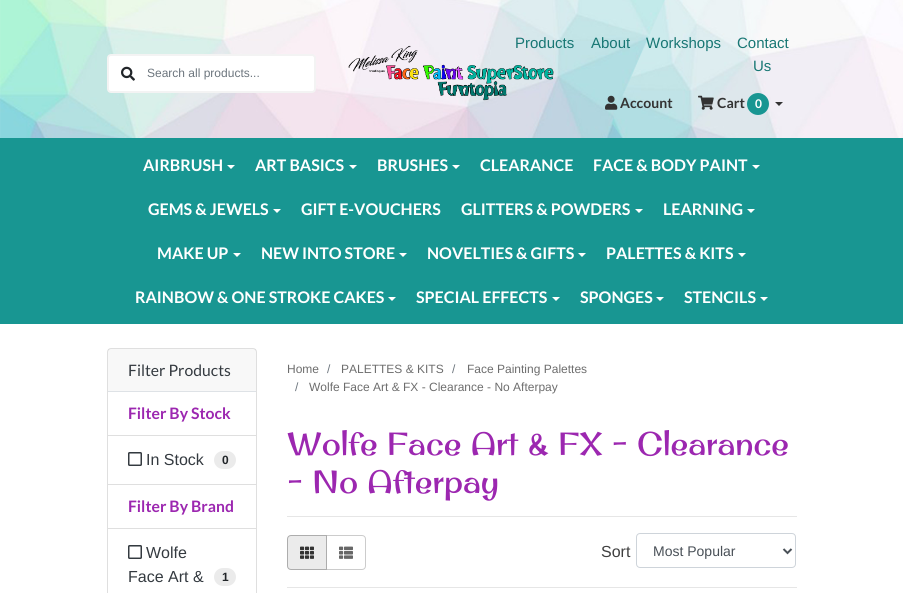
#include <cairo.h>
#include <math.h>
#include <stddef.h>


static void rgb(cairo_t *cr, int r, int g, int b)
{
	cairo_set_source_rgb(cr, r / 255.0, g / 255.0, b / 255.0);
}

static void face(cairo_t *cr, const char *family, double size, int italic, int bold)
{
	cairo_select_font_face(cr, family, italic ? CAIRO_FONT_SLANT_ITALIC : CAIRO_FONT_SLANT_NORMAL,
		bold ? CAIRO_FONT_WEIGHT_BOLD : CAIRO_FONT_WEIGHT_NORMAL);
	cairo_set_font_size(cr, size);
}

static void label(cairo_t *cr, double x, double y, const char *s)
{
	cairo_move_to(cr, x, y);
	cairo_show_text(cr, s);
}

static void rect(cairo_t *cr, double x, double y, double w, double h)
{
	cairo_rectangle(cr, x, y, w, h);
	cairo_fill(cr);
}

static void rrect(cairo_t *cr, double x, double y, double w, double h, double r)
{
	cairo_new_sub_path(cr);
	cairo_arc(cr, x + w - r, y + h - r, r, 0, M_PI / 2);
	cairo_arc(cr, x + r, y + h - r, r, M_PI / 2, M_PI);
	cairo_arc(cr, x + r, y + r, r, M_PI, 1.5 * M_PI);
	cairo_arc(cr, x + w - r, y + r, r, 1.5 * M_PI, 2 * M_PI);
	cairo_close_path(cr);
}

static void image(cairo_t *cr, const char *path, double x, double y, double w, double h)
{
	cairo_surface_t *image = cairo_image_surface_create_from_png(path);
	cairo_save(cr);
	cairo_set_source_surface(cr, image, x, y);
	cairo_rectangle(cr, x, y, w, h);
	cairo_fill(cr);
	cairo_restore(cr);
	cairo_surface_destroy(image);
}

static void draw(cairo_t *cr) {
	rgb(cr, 255, 255, 255);
	cairo_paint(cr);
	image(cr, "image0.png", 0, 0, 903, 138);
	rgb(cr, 255, 255, 255);
	rrect(cr, 108, 55, 207, 37, 3);
	cairo_fill_preserve(cr);
	rgb(cr, 243, 243, 243);
	cairo_stroke(cr);
	image(cr, "image1.png", 121, 66, 14, 15);
	face(cr, "Liberation Sans", 12, 0, 0);
	rgb(cr, 108, 117, 125);
	label(cr, 147, 77, "Search all products...");
	image(cr, "image2.png", 348, 45, 206, 56);
	face(cr, "Liberation Sans", 15, 0, 0);
	rgb(cr, 24, 119, 116);
	label(cr, 515, 48, "Products");
	label(cr, 591, 48, "About");
	label(cr, 646, 48, "Workshops");
	label(cr, 737, 48, "Contact");
	label(cr, 753, 71, "Us");
	image(cr, "image3.png", 605, 95, 13, 15);
	face(cr, "Lato", 14, 0, 1);
	rgb(cr, 51, 51, 51);
	label(cr, 620, 108, "Account");
	image(cr, "image4.png", 698, 95, 16, 15);
	label(cr, 717, 108, "Cart");
	rgb(cr, 24, 150, 146);
	cairo_new_path(cr);
	cairo_arc(cr, 758, 104, 11, 0, 2 * M_PI);
	cairo_fill(cr);
	face(cr, "Lato", 12, 0, 1);
	rgb(cr, 255, 255, 255);
	label(cr, 755, 108, "0");
	rgb(cr, 51, 51, 51);
	cairo_new_path(cr);
	cairo_move_to(cr, 775, 102);
	cairo_line_to(cr, 783, 102);
	cairo_line_to(cr, 779, 106);
	cairo_close_path(cr);
	cairo_fill(cr);
	rgb(cr, 24, 150, 146);
	rect(cr, 0, 138, 903, 186);
	face(cr, "Lato", 16, 0, 1);
	rgb(cr, 255, 255, 255);
	label(cr, 143, 171, "AIRBRUSH");
	cairo_new_path(cr);
	cairo_move_to(cr, 227, 165);
	cairo_line_to(cr, 235, 165);
	cairo_line_to(cr, 231, 169);
	cairo_close_path(cr);
	cairo_fill(cr);
	label(cr, 255, 171, "ART BASICS");
	cairo_new_path(cr);
	cairo_move_to(cr, 349, 165);
	cairo_line_to(cr, 357, 165);
	cairo_line_to(cr, 353, 169);
	cairo_close_path(cr);
	cairo_fill(cr);
	label(cr, 377, 171, "BRUSHES");
	cairo_new_path(cr);
	cairo_move_to(cr, 452, 165);
	cairo_line_to(cr, 460, 165);
	cairo_line_to(cr, 456, 169);
	cairo_close_path(cr);
	cairo_fill(cr);
	label(cr, 480, 171, "CLEARANCE");
	label(cr, 593, 171, "FACE & BODY PAINT");
	cairo_new_path(cr);
	cairo_move_to(cr, 752, 165);
	cairo_line_to(cr, 760, 165);
	cairo_line_to(cr, 756, 169);
	cairo_close_path(cr);
	cairo_fill(cr);
	label(cr, 148, 215, "GEMS & JEWELS");
	cairo_new_path(cr);
	cairo_move_to(cr, 273, 209);
	cairo_line_to(cr, 281, 209);
	cairo_line_to(cr, 277, 213);
	cairo_close_path(cr);
	cairo_fill(cr);
	label(cr, 301, 215, "GIFT E-VOUCHERS");
	label(cr, 461, 215, "GLITTERS & POWDERS");
	cairo_new_path(cr);
	cairo_move_to(cr, 635, 209);
	cairo_line_to(cr, 643, 209);
	cairo_line_to(cr, 639, 213);
	cairo_close_path(cr);
	cairo_fill(cr);
	label(cr, 663, 215, "LEARNING");
	cairo_new_path(cr);
	cairo_move_to(cr, 747, 209);
	cairo_line_to(cr, 755, 209);
	cairo_line_to(cr, 751, 213);
	cairo_close_path(cr);
	cairo_fill(cr);
	label(cr, 157, 259, "MAKE UP");
	cairo_new_path(cr);
	cairo_move_to(cr, 233, 253);
	cairo_line_to(cr, 241, 253);
	cairo_line_to(cr, 237, 257);
	cairo_close_path(cr);
	cairo_fill(cr);
	label(cr, 261, 259, "NEW INTO STORE");
	cairo_new_path(cr);
	cairo_move_to(cr, 399, 253);
	cairo_line_to(cr, 407, 253);
	cairo_line_to(cr, 403, 257);
	cairo_close_path(cr);
	cairo_fill(cr);
	label(cr, 427, 259, "NOVELTIES & GIFTS");
	cairo_new_path(cr);
	cairo_move_to(cr, 578, 253);
	cairo_line_to(cr, 586, 253);
	cairo_line_to(cr, 582, 257);
	cairo_close_path(cr);
	cairo_fill(cr);
	label(cr, 606, 259, "PALETTES & KITS");
	cairo_new_path(cr);
	cairo_move_to(cr, 738, 253);
	cairo_line_to(cr, 746, 253);
	cairo_line_to(cr, 742, 257);
	cairo_close_path(cr);
	cairo_fill(cr);
	label(cr, 135, 303, "RAINBOW & ONE STROKE CAKES");
	cairo_new_path(cr);
	cairo_move_to(cr, 388, 297);
	cairo_line_to(cr, 396, 297);
	cairo_line_to(cr, 392, 301);
	cairo_close_path(cr);
	cairo_fill(cr);
	label(cr, 416, 303, "SPECIAL EFFECTS");
	cairo_new_path(cr);
	cairo_move_to(cr, 552, 297);
	cairo_line_to(cr, 560, 297);
	cairo_line_to(cr, 556, 301);
	cairo_close_path(cr);
	cairo_fill(cr);
	label(cr, 580, 303, "SPONGES");
	cairo_new_path(cr);
	cairo_move_to(cr, 656, 297);
	cairo_line_to(cr, 664, 297);
	cairo_line_to(cr, 660, 301);
	cairo_close_path(cr);
	cairo_fill(cr);
	label(cr, 684, 303, "STENCILS");
	cairo_new_path(cr);
	cairo_move_to(cr, 760, 297);
	cairo_line_to(cr, 768, 297);
	cairo_line_to(cr, 764, 301);
	cairo_close_path(cr);
	cairo_fill(cr);
	rrect(cr, 107.5, 348.5, 149, 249, 3.5);
	rgb(cr, 223, 223, 223);
	cairo_set_line_width(cr, 1);
	cairo_stroke(cr);
	cairo_set_source_rgba(cr, 0, 0, 0, 0.03);
	rect(cr, 108, 349, 148, 42);
	rgb(cr, 222, 226, 230);
	rect(cr, 108, 391, 148, 1);
	face(cr, "Lato", 15.75, 0, 0);
	rgb(cr, 52, 58, 64);
	label(cr, 128, 376, "Filter Products");
	face(cr, "Lato", 15.75, 0, 1);
	rgb(cr, 156, 39, 176);
	label(cr, 128, 419, "Filter By Stock");
	rgb(cr, 223, 223, 223);
	rect(cr, 108, 435, 148, 1);
	image(cr, "image5.png", 128, 452, 14, 14);
	face(cr, "Liberation Sans", 16, 0, 0);
	rgb(cr, 52, 58, 64);
	label(cr, 146, 465, "In Stock");
	rgb(cr, 235, 235, 235);
	rrect(cr, 214, 451, 22, 18, 9);
	cairo_fill(cr);
	face(cr, "Liberation Sans", 12, 0, 1);
	rgb(cr, 33, 37, 41);
	label(cr, 222, 464, "0");
	rgb(cr, 223, 223, 223);
	rect(cr, 108, 484, 148, 1);
	face(cr, "Lato", 15.75, 0, 1);
	rgb(cr, 156, 39, 176);
	label(cr, 128, 512, "Filter By Brand");
	rgb(cr, 223, 223, 223);
	rect(cr, 108, 528, 148, 1);
	image(cr, "image5.png", 128, 545, 14, 14);
	face(cr, "Liberation Sans", 16, 0, 0);
	rgb(cr, 52, 58, 64);
	label(cr, 146, 558, "Wolfe");
	label(cr, 128, 582, "Face Art &");
	rgb(cr, 235, 235, 235);
	rrect(cr, 214, 568, 22, 18, 9);
	cairo_fill(cr);
	face(cr, "Liberation Sans", 12, 0, 1);
	rgb(cr, 33, 37, 41);
	label(cr, 222, 581, "1");
	face(cr, "Liberation Sans", 12, 0, 0);
	rgb(cr, 109, 109, 109);
	label(cr, 287, 373, "Home");
	rgb(cr, 108, 117, 125);
	label(cr, 327, 373, "/");
	rgb(cr, 109, 109, 109);
	label(cr, 341, 373, "PALETTES & KITS");
	rgb(cr, 108, 117, 125);
	label(cr, 452, 373, "/");
	rgb(cr, 109, 109, 109);
	label(cr, 467, 373, "Face Painting Palettes");
	rgb(cr, 108, 117, 125);
	label(cr, 295, 391, "/");
	rgb(cr, 109, 109, 109);
	label(cr, 309, 391, "Wolfe Face Art & FX - Clearance - No Afterpay");
	face(cr, "Original Surfer", 32, 0, 0);
	rgb(cr, 156, 39, 176);
	label(cr, 287, 455, "Wolfe Face Art & FX - Clearance");
	label(cr, 287, 493, "- No Afterpay");
	rgb(cr, 230, 230, 230);
	rect(cr, 287, 516, 510, 1);
	cairo_new_path(cr);
	cairo_move_to(cr, 326.5, 535.5);
	cairo_line_to(cr, 362, 535.5);
	cairo_curve_to(cr, 364, 535.5, 365.5, 537, 365.5, 539);
	cairo_line_to(cr, 365.5, 566);
	cairo_curve_to(cr, 365.5, 568, 364, 569.5, 362, 569.5);
	cairo_line_to(cr, 326.5, 569.5);
	cairo_close_path(cr);
	rgb(cr, 204, 204, 204);
	cairo_stroke(cr);
	rgb(cr, 235, 235, 235);
	cairo_new_path(cr);
	cairo_move_to(cr, 291, 535.5);
	cairo_line_to(cr, 326.5, 535.5);
	cairo_line_to(cr, 326.5, 569.5);
	cairo_line_to(cr, 291, 569.5);
	cairo_curve_to(cr, 289, 569.5, 287.5, 568, 287.5, 566);
	cairo_line_to(cr, 287.5, 539);
	cairo_curve_to(cr, 287.5, 537, 289, 535.5, 291, 535.5);
	cairo_close_path(cr);
	cairo_fill_preserve(cr);
	rgb(cr, 173, 173, 173);
	cairo_stroke(cr);
	image(cr, "image6.png", 300, 546, 14, 13);
	image(cr, "image7.png", 339, 546, 14, 13);
	face(cr, "Liberation Sans", 16, 0, 0);
	rgb(cr, 63, 63, 63);
	label(cr, 601, 557, "Sort");
	rrect(cr, 636.5, 533.5, 159, 34, 3.5);
	rgb(cr, 206, 212, 218);
	cairo_stroke(cr);
	cairo_new_path(cr);
	cairo_move_to(cr, 783.5, 549);
	cairo_line_to(cr, 787.5, 553);
	cairo_line_to(cr, 791.5, 549);
	rgb(cr, 73, 80, 87);
	cairo_set_line_width(cr, 2);
	cairo_stroke(cr);
	face(cr, "Liberation Sans", 14, 0, 0);
	label(cr, 653, 556, "Most Popular");
	rgb(cr, 230, 230, 230);
	rect(cr, 287, 587, 510, 1);
}

int main(void) {
	cairo_surface_t *surface = cairo_image_surface_create(CAIRO_FORMAT_RGB24, 903, 593);
	cairo_t *cr = cairo_create(surface);
	cairo_font_options_t *options = cairo_font_options_create();
	cairo_font_options_set_hint_metrics(options, CAIRO_HINT_METRICS_OFF);
	cairo_font_options_set_hint_style(options, CAIRO_HINT_STYLE_NONE);
	cairo_set_font_options(cr, options);
	cairo_set_miter_limit(cr, 4);
	draw(cr);
	cairo_surface_write_to_png(surface, "render.png");
	cairo_font_options_destroy(options);
	cairo_destroy(cr);
	cairo_surface_destroy(surface);
	return 0;
}
